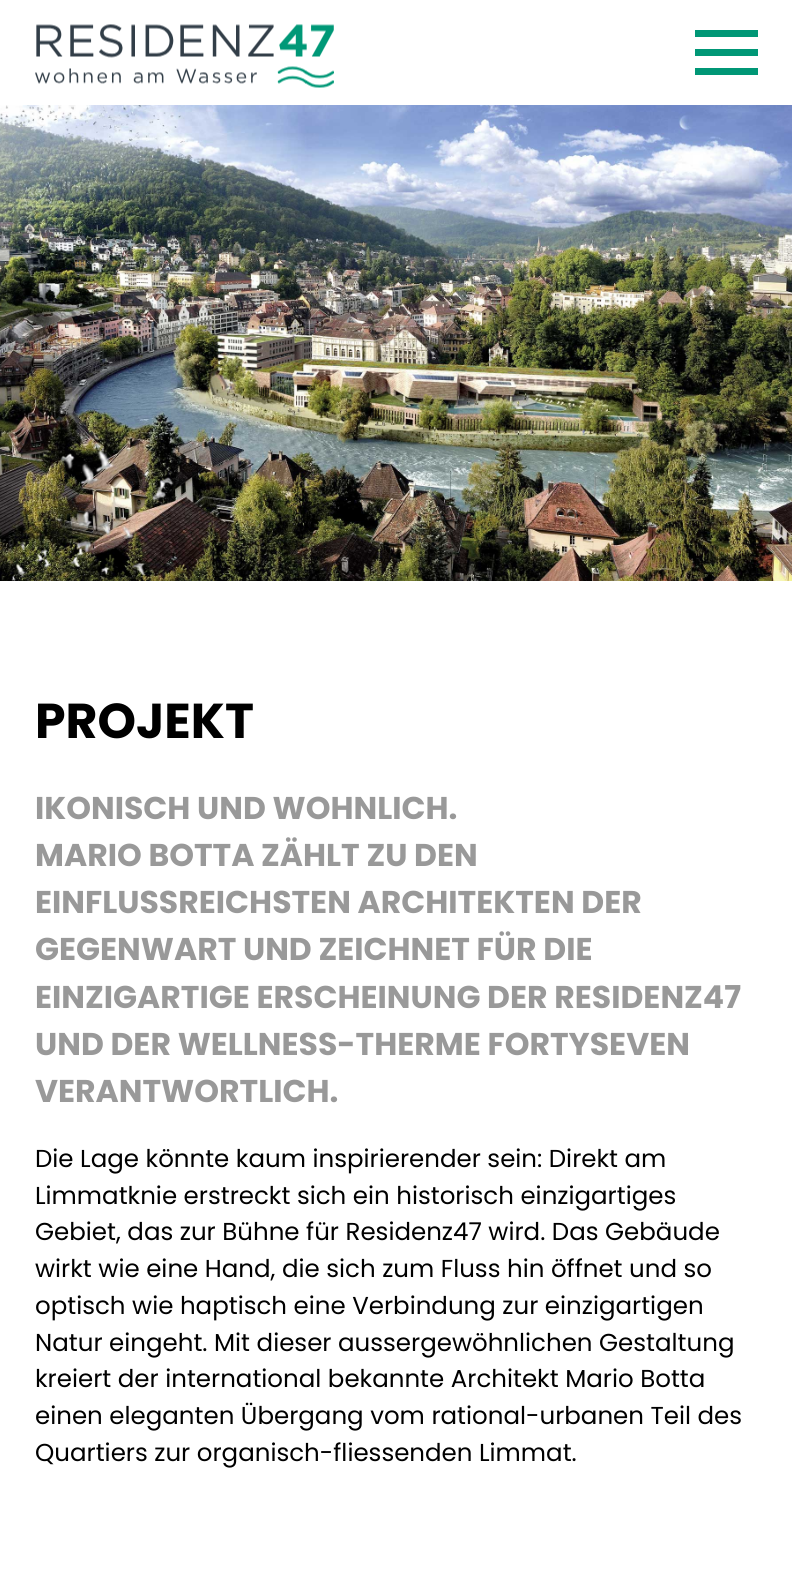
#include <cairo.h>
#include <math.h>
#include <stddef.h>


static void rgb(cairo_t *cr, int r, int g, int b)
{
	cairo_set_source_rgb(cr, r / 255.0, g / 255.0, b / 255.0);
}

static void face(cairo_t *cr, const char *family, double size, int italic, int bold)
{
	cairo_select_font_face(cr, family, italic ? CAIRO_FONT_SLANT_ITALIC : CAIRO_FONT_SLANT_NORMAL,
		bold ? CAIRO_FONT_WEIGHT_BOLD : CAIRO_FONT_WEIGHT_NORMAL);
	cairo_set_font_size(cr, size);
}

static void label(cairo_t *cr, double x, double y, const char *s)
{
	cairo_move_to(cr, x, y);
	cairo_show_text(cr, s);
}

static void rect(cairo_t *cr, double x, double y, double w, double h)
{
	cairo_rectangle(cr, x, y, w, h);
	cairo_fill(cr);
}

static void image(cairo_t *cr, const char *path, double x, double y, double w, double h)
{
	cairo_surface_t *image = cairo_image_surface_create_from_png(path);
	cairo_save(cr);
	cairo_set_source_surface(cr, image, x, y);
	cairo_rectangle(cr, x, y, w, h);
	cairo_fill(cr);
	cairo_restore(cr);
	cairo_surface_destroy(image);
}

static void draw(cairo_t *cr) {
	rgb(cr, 255, 255, 255);
	cairo_paint(cr);
	image(cr, "image0.png", 35, 24, 299, 64);
	rgb(cr, 0, 151, 118);
	rect(cr, 695, 30, 63, 7);
	rect(cr, 695, 49, 63, 7);
	rect(cr, 695, 68, 63, 7);
	image(cr, "image1.png", 0, 105, 792, 476);
	face(cr, "Poppins", 49, 0, 1);
	rgb(cr, 0, 0, 0);
	label(cr, 35, 738, "PROJEKT");
	face(cr, "Poppins", 31.5, 0, 1);
	rgb(cr, 153, 153, 153);
	label(cr, 35, 819, "IKONISCH UND WOHNLICH.");
	label(cr, 35, 866, "MARIO BOTTA ZÄHLT ZU DEN");
	label(cr, 35, 913, "EINFLUSSREICHSTEN ARCHITEKTEN DER");
	label(cr, 35, 960, "GEGENWART UND ZEICHNET FÜR DIE");
	label(cr, 35, 1008, "EINZIGARTIGE ERSCHEINUNG DER RESIDENZ47");
	label(cr, 35, 1055, "UND DER WELLNESS-THERME FORTYSEVEN");
	label(cr, 35, 1102, "VERANTWORTLICH.");
	face(cr, "Poppins", 24.5, 0, 0);
	rgb(cr, 0, 0, 0);
	label(cr, 35, 1167, "Die Lage könnte kaum inspirierender sein: Direkt am");
	label(cr, 35, 1204, "Limmatknie erstreckt sich ein historisch einzigartiges");
	label(cr, 35, 1240, "Gebiet, das zur Bühne für Residenz47 wird. Das Gebäude");
	label(cr, 35, 1277, "wirkt wie eine Hand, die sich zum Fluss hin öffnet und so");
	label(cr, 35, 1314, "optisch wie haptisch eine Verbindung zur einzigartigen");
	label(cr, 35, 1351, "Natur eingeht. Mit dieser aussergewöhnlichen Gestaltung");
	label(cr, 35, 1387, "kreiert der international bekannte Architekt Mario Botta");
	label(cr, 35, 1424, "einen eleganten Übergang vom rational-urbanen Teil des");
	label(cr, 35, 1461, "Quartiers zur organisch-fliessenden Limmat.");
}

int main(void) {
	cairo_surface_t *surface = cairo_image_surface_create(CAIRO_FORMAT_RGB24, 792, 1569);
	cairo_t *cr = cairo_create(surface);
	cairo_font_options_t *options = cairo_font_options_create();
	cairo_font_options_set_hint_metrics(options, CAIRO_HINT_METRICS_OFF);
	cairo_font_options_set_hint_style(options, CAIRO_HINT_STYLE_NONE);
	cairo_set_font_options(cr, options);
	cairo_set_miter_limit(cr, 4);
	draw(cr);
	cairo_surface_write_to_png(surface, "render.png");
	cairo_font_options_destroy(options);
	cairo_destroy(cr);
	cairo_surface_destroy(surface);
	return 0;
}
